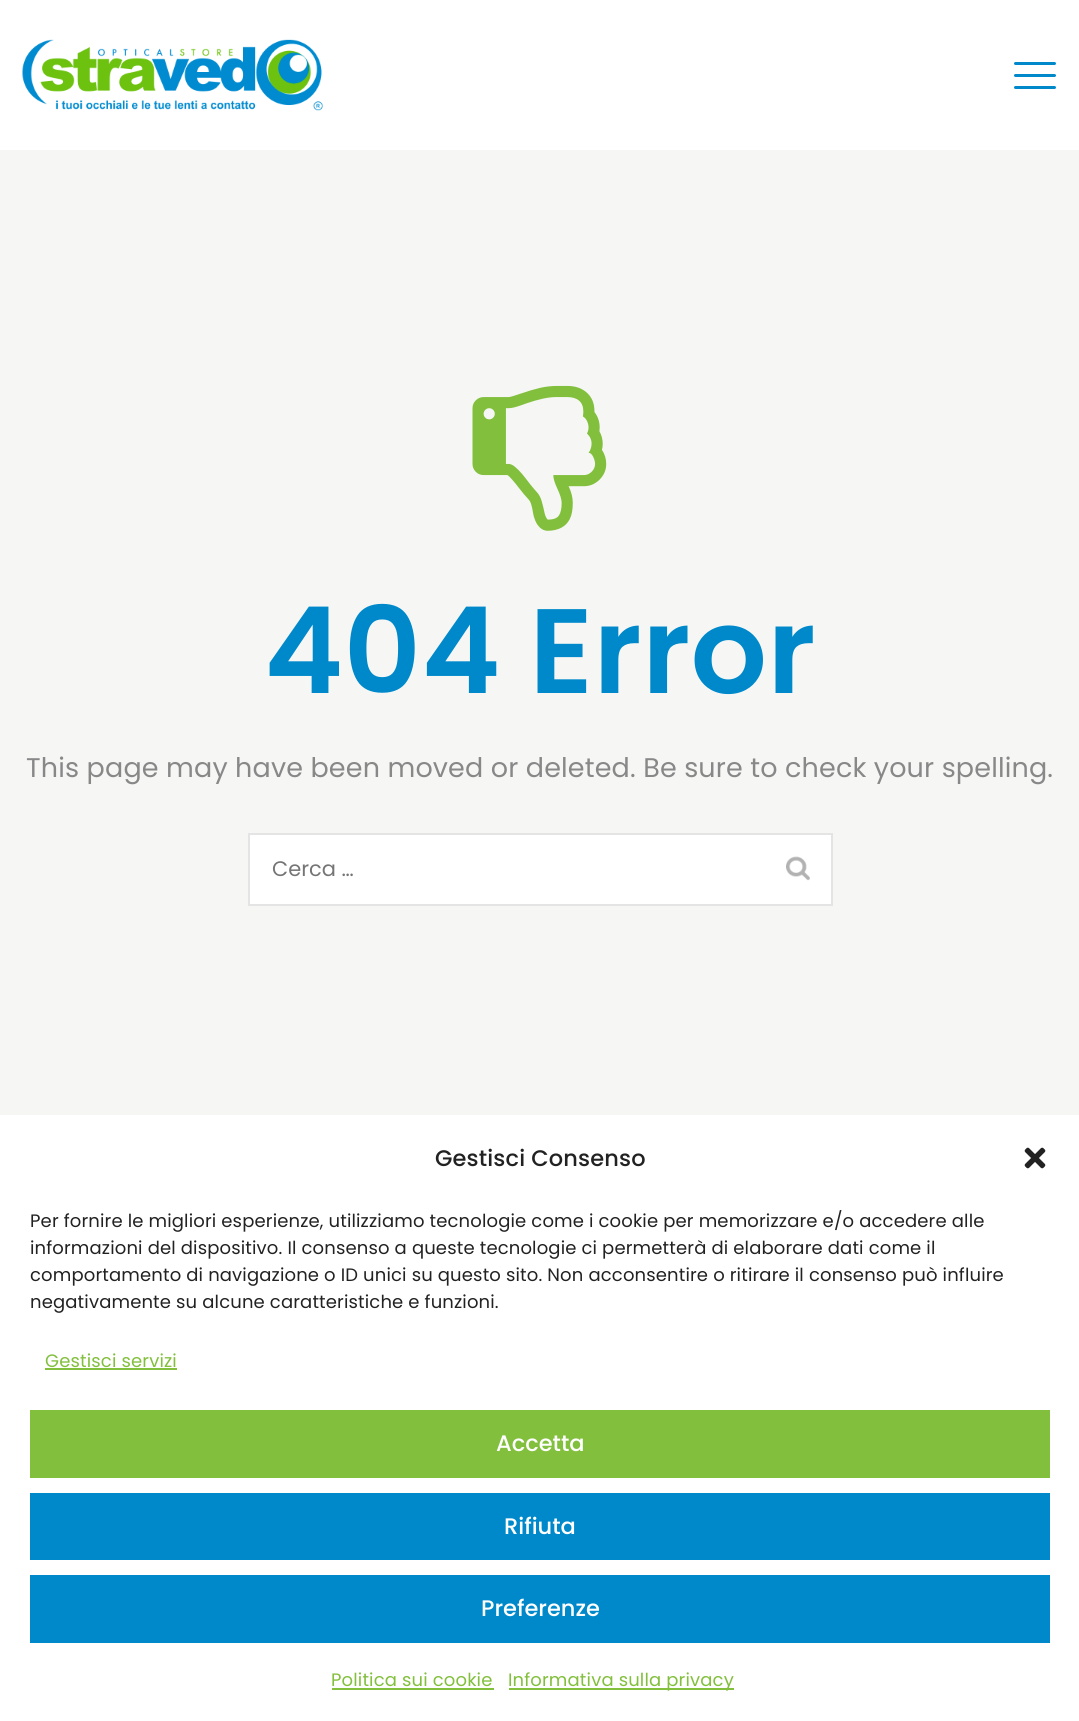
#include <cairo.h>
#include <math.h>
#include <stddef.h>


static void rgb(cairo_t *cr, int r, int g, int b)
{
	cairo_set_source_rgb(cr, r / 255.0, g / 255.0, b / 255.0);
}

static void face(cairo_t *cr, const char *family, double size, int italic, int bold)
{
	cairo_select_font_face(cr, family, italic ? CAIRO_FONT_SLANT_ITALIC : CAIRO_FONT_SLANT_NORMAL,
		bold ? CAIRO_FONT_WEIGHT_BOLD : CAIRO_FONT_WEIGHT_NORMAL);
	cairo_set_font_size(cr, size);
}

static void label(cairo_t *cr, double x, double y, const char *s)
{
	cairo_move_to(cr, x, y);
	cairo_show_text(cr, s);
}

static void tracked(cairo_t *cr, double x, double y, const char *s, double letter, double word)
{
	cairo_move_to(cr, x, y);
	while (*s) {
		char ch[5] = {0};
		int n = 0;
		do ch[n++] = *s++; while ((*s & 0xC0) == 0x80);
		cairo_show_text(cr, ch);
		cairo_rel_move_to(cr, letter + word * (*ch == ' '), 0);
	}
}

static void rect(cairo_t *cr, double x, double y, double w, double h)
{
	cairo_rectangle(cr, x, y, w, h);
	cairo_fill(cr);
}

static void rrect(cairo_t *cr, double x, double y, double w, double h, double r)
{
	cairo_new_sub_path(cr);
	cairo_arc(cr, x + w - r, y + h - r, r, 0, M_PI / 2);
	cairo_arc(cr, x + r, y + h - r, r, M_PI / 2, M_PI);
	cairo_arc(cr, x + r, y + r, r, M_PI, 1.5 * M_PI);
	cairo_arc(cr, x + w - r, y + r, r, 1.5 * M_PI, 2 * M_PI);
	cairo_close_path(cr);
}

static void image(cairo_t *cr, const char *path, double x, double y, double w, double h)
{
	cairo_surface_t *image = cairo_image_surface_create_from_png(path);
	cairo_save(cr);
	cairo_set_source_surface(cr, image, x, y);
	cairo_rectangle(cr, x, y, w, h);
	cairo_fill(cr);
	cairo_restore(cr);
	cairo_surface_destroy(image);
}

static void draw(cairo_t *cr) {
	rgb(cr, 255, 255, 255);
	cairo_paint(cr);
	image(cr, "image0.png", 22, 39, 301, 72);
	rgb(cr, 0, 137, 202);
	rrect(cr, 1014, 74, 42, 3, 1.5);
	cairo_fill(cr);
	rrect(cr, 1014, 62, 42, 3, 1.5);
	cairo_fill(cr);
	rrect(cr, 1014, 86, 42, 3, 1.5);
	cairo_fill(cr);
	rgb(cr, 246, 247, 245);
	rect(cr, 0, 150, 1079, 965);
	image(cr, "image1.png", 472, 385, 135, 146);
	face(cr, "Poppins SemiBold", 120, 0, 0);
	rgb(cr, 0, 137, 202);
	tracked(cr, 264, 693, "404 Error", 0.15, 0);
	face(cr, "Poppins", 27, 0, 0);
	rgb(cr, 136, 136, 136);
	tracked(cr, 26, 777, "This page may have been moved or deleted. Be sure to check your spelling.", 0.15, 0);
	rgb(cr, 255, 255, 255);
	cairo_rectangle(cr, 249, 834, 583, 71);
	cairo_fill_preserve(cr);
	rgb(cr, 228, 228, 228);
	cairo_stroke(cr);
	face(cr, "Poppins", 21, 0, 0);
	rgb(cr, 117, 117, 117);
	label(cr, 272, 876, "Cerca …");
	image(cr, "image2.png", 786, 856, 24, 25);
	face(cr, "Poppins Medium", 22.5, 0, 0);
	rgb(cr, 34, 34, 34);
	tracked(cr, 435, 1166, "Gestisci Consenso", 0.15, 0);
	image(cr, "image3.png", 1024, 1147, 22, 22);
	face(cr, "Poppins", 18, 0, 0);
	tracked(cr, 30, 1227, "Per fornire le migliori esperienze, utilizziamo tecnologie come i cookie per memorizzare e/o accedere alle", 0.15, 0);
	tracked(cr, 30, 1254, "informazioni del dispositivo. Il consenso a queste tecnologie ci permetterà di elaborare dati come il", 0.15, 0);
	tracked(cr, 30, 1281, "comportamento di navigazione o ID unici su questo sito. Non acconsentire o ritirare il consenso può influire", 0.15, 0);
	tracked(cr, 30, 1308, "negativamente su alcune caratteristiche e funzioni.", 0.15, 0);
	rgb(cr, 130, 191, 61);
	tracked(cr, 45, 1367, "Gestisci servizi", 0.15, 0);
	rect(cr, 45, 1368, 132, 2);
	rect(cr, 30, 1410, 1020, 68);
	face(cr, "Poppins Medium", 22.5, 0, 0);
	rgb(cr, 255, 255, 255);
	label(cr, 496, 1451, "Accetta");
	rgb(cr, 0, 137, 202);
	rect(cr, 30, 1493, 1020, 67);
	rgb(cr, 255, 255, 255);
	label(cr, 504, 1534, "Rifiuta");
	rgb(cr, 0, 137, 202);
	rect(cr, 30, 1575, 1020, 68);
	rgb(cr, 255, 255, 255);
	label(cr, 481, 1616, "Preferenze");
	face(cr, "Poppins", 18, 0, 0);
	rgb(cr, 130, 191, 61);
	tracked(cr, 331, 1686, "Politica sui cookie", 0.15, 0);
	rect(cr, 332, 1688, 162, 2);
	rect(cr, 509, 1688, 225, 2);
	tracked(cr, 508, 1686, "Informativa sulla privacy", 0.15, 0);
}

int main(void) {
	cairo_surface_t *surface = cairo_image_surface_create(CAIRO_FORMAT_RGB24, 1079, 1721);
	cairo_t *cr = cairo_create(surface);
	cairo_font_options_t *options = cairo_font_options_create();
	cairo_font_options_set_hint_metrics(options, CAIRO_HINT_METRICS_OFF);
	cairo_font_options_set_hint_style(options, CAIRO_HINT_STYLE_NONE);
	cairo_set_font_options(cr, options);
	cairo_set_miter_limit(cr, 4);
	draw(cr);
	cairo_surface_write_to_png(surface, "render.png");
	cairo_font_options_destroy(options);
	cairo_destroy(cr);
	cairo_surface_destroy(surface);
	return 0;
}
